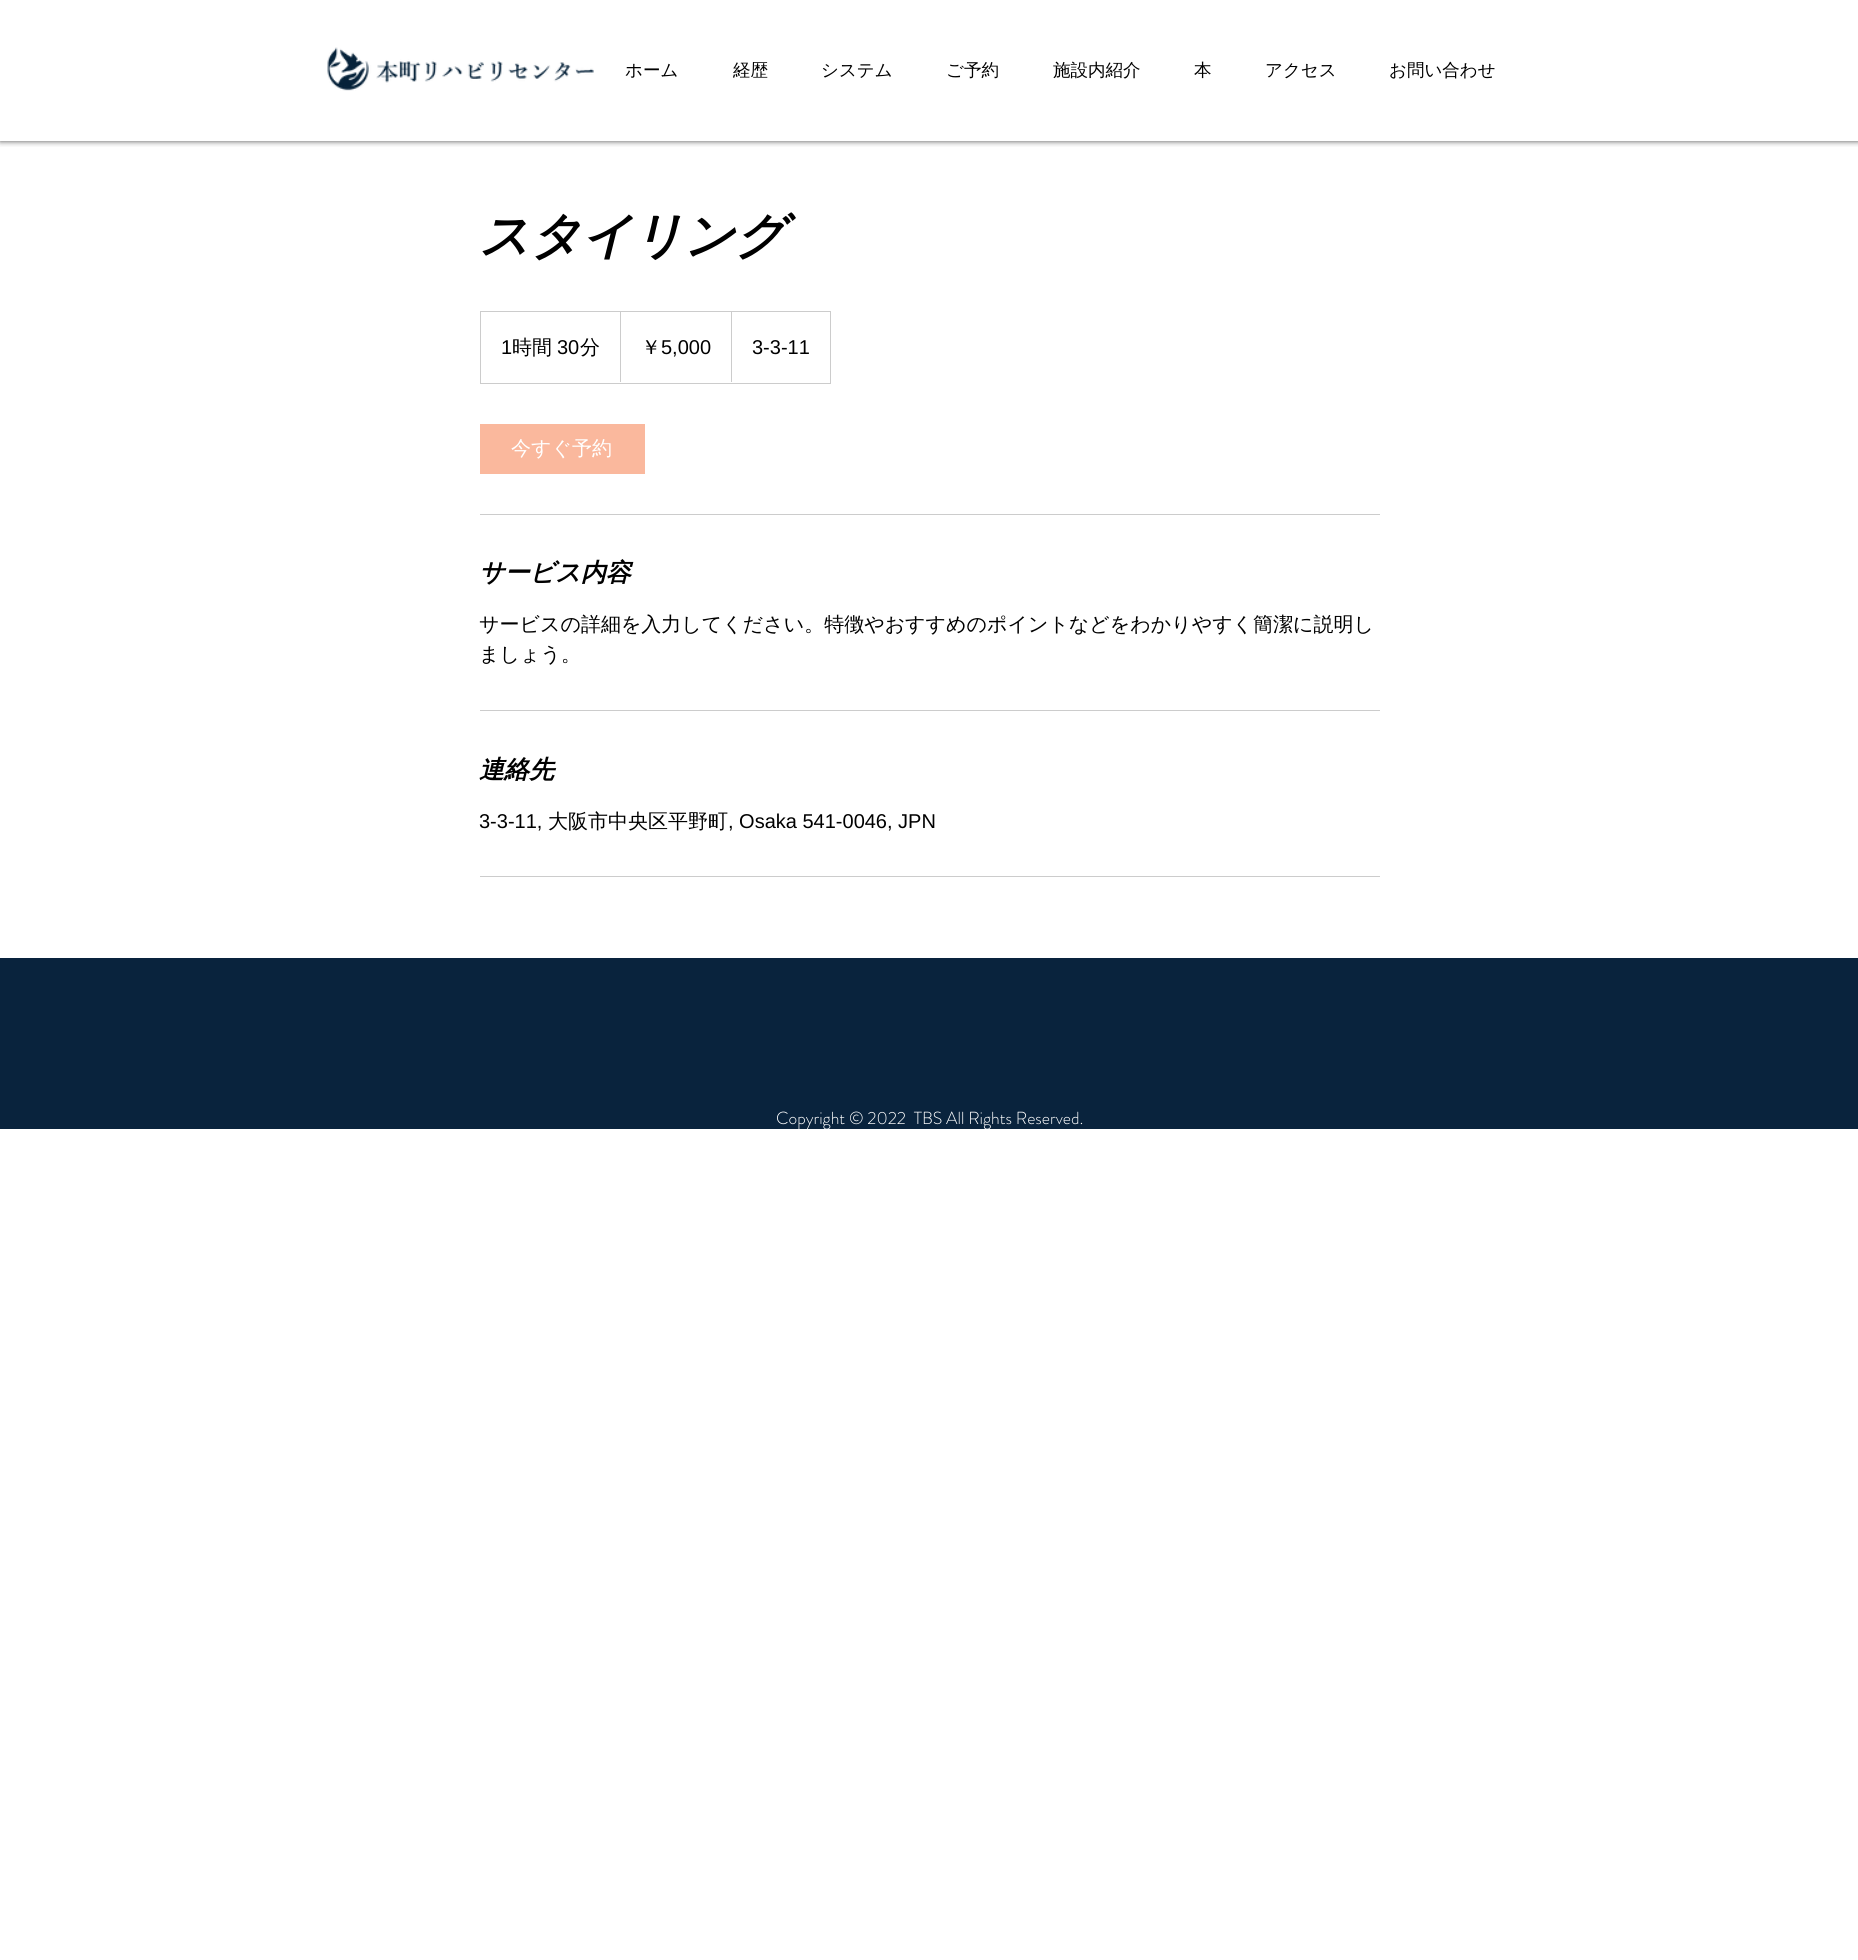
#include <cairo.h>
#include <math.h>
#include <stddef.h>


static void rgb(cairo_t *cr, int r, int g, int b)
{
	cairo_set_source_rgb(cr, r / 255.0, g / 255.0, b / 255.0);
}

static void face(cairo_t *cr, const char *family, double size, int italic, int bold)
{
	cairo_select_font_face(cr, family, italic ? CAIRO_FONT_SLANT_ITALIC : CAIRO_FONT_SLANT_NORMAL,
		bold ? CAIRO_FONT_WEIGHT_BOLD : CAIRO_FONT_WEIGHT_NORMAL);
	cairo_set_font_size(cr, size);
}

static void label(cairo_t *cr, double x, double y, const char *s)
{
	cairo_move_to(cr, x, y);
	cairo_show_text(cr, s);
}

static void rect(cairo_t *cr, double x, double y, double w, double h)
{
	cairo_rectangle(cr, x, y, w, h);
	cairo_fill(cr);
}

static void rrect(cairo_t *cr, double x, double y, double w, double h, double r)
{
	cairo_new_sub_path(cr);
	cairo_arc(cr, x + w - r, y + h - r, r, 0, M_PI / 2);
	cairo_arc(cr, x + r, y + h - r, r, M_PI / 2, M_PI);
	cairo_arc(cr, x + r, y + r, r, M_PI, 1.5 * M_PI);
	cairo_arc(cr, x + w - r, y + r, r, 1.5 * M_PI, 2 * M_PI);
	cairo_close_path(cr);
}

static void soft_shadow(cairo_t *cr, double x, double y, double w, double h, double r, double blur, double alpha)
{
	cairo_push_group_with_content(cr, CAIRO_CONTENT_ALPHA);
	cairo_set_operator(cr, CAIRO_OPERATOR_SOURCE);
	for (int i = 15; i >= -15 && fmin(w, h) + blur * i / 3 > 0; i -= 2) {
		double e = blur * i / 6;
		cairo_set_source_rgba(cr, 0, 0, 0, alpha * erfc((i - 1) / 8.5) / 2);
		rrect(cr, x - e, y - e, w + 2 * e, h + 2 * e, fmax(0, fmin(r + e + blur * .6, fmin(w, h) / 2 + e)));
		cairo_fill(cr);
	}
	cairo_pattern_t *soft = cairo_pop_group(cr);
	cairo_mask(cr, soft);
	cairo_pattern_destroy(soft);
}

static void image(cairo_t *cr, const char *path, double x, double y, double w, double h)
{
	cairo_surface_t *image = cairo_image_surface_create_from_png(path);
	cairo_save(cr);
	cairo_set_source_surface(cr, image, x, y);
	cairo_rectangle(cr, x, y, w, h);
	cairo_fill(cr);
	cairo_restore(cr);
	cairo_surface_destroy(image);
}

static void draw(cairo_t *cr) {
	rgb(cr, 255, 255, 255);
	cairo_paint(cr);
	cairo_save(cr);
	cairo_rectangle(cr, 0, 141, 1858, 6);
	cairo_clip(cr);
	rgb(cr, 0, 0, 0);
	soft_shadow(cr, 0, 0, 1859, 141, 0, 3, 0.7);
	cairo_restore(cr);
	image(cr, "image0.png", 327, 47, 267, 44);
	face(cr, "WenQuanYi Zen Hei Medium", 17.5, 0, 0);
	rgb(cr, 0, 0, 0);
	label(cr, 625, 76, "ホーム");
	label(cr, 733, 76, "経歴");
	label(cr, 821, 76, "システム");
	label(cr, 946, 76, "ご予約");
	label(cr, 1053, 76, "施設内紹介");
	label(cr, 1194, 76, "本");
	label(cr, 1265, 76, "アクセス");
	label(cr, 1389, 76, "お問い合わせ");
	face(cr, "WenQuanYi Zen Hei", 50, 1, 1);
	label(cr, 479, 253, "スタイリング");
	cairo_rectangle(cr, 480.5, 311.5, 350, 72);
	rgb(cr, 204, 204, 204);
	cairo_set_line_width(cr, 1);
	cairo_stroke(cr);
	face(cr, "Liberation Sans", 20, 0, 0);
	rgb(cr, 0, 0, 0);
	label(cr, 501, 354, "1");
	face(cr, "WenQuanYi Zen Hei Medium", 20, 0, 0);
	label(cr, 512, 354, "時間");
	face(cr, "Liberation Sans", 20, 0, 0);
	label(cr, 557, 354, "30");
	face(cr, "WenQuanYi Zen Hei Medium", 20, 0, 0);
	label(cr, 580, 354, "分");
	rgb(cr, 204, 204, 204);
	cairo_new_path(cr);
	cairo_move_to(cr, 620, 382);
	cairo_line_to(cr, 620, 311);
	cairo_line_to(cr, 621, 312);
	cairo_line_to(cr, 621, 382);
	cairo_close_path(cr);
	cairo_fill(cr);
	rgb(cr, 0, 0, 0);
	label(cr, 641, 354, "￥");
	face(cr, "Liberation Sans", 20, 0, 0);
	label(cr, 661, 354, "5,000");
	rgb(cr, 204, 204, 204);
	cairo_new_path(cr);
	cairo_move_to(cr, 731, 382);
	cairo_line_to(cr, 731, 311);
	cairo_line_to(cr, 732, 312);
	cairo_line_to(cr, 732, 382);
	cairo_close_path(cr);
	cairo_fill(cr);
	rgb(cr, 0, 0, 0);
	label(cr, 752, 354, "3-3-11");
	rgb(cr, 250, 184, 157);
	rect(cr, 480, 424, 165, 50);
	face(cr, "WenQuanYi Zen Hei Medium", 20, 0, 0);
	rgb(cr, 255, 255, 255);
	label(cr, 511, 455, "今すぐ予約");
	rgb(cr, 204, 204, 204);
	rect(cr, 480, 514, 900, 1);
	face(cr, "WenQuanYi Zen Hei", 25, 1, 1);
	rgb(cr, 0, 0, 0);
	label(cr, 479, 581, "サービス内容");
	face(cr, "WenQuanYi Zen Hei Medium", 20, 0, 0);
	label(cr, 479, 631, "サービスの詳細を入力してください。特徴やおすすめのポイントなどをわかりやすく簡潔に説明し");
	label(cr, 479, 661, "ましょう。");
	rgb(cr, 204, 204, 204);
	rect(cr, 480, 710, 900, 1);
	face(cr, "WenQuanYi Zen Hei", 25, 1, 1);
	rgb(cr, 0, 0, 0);
	label(cr, 479, 778, "連絡先");
	face(cr, "Liberation Sans", 20, 0, 0);
	label(cr, 479, 828, "3-3-11,");
	face(cr, "WenQuanYi Zen Hei Medium", 20, 0, 0);
	label(cr, 548, 828, "大阪市中央区平野町");
	face(cr, "Liberation Sans", 20, 0, 0);
	label(cr, 728, 828, ", Osaka 541-0046, JPN");
	rgb(cr, 204, 204, 204);
	rect(cr, 480, 876, 900, 1);
	rgb(cr, 9, 35, 61);
	rect(cr, 0, 958, 1858, 171);
	face(cr, "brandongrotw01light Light", 17.5, 0, 0);
	rgb(cr, 255, 255, 255);
	label(cr, 776, 1124, "Copyright © 2022  TBS All Rights Reserved.");
}

int main(void) {
	cairo_surface_t *surface = cairo_image_surface_create(CAIRO_FORMAT_RGB24, 1858, 1960);
	cairo_t *cr = cairo_create(surface);
	cairo_font_options_t *options = cairo_font_options_create();
	cairo_font_options_set_hint_metrics(options, CAIRO_HINT_METRICS_OFF);
	cairo_font_options_set_hint_style(options, CAIRO_HINT_STYLE_NONE);
	cairo_set_font_options(cr, options);
	cairo_set_miter_limit(cr, 4);
	draw(cr);
	cairo_surface_write_to_png(surface, "render.png");
	cairo_font_options_destroy(options);
	cairo_destroy(cr);
	cairo_surface_destroy(surface);
	return 0;
}
